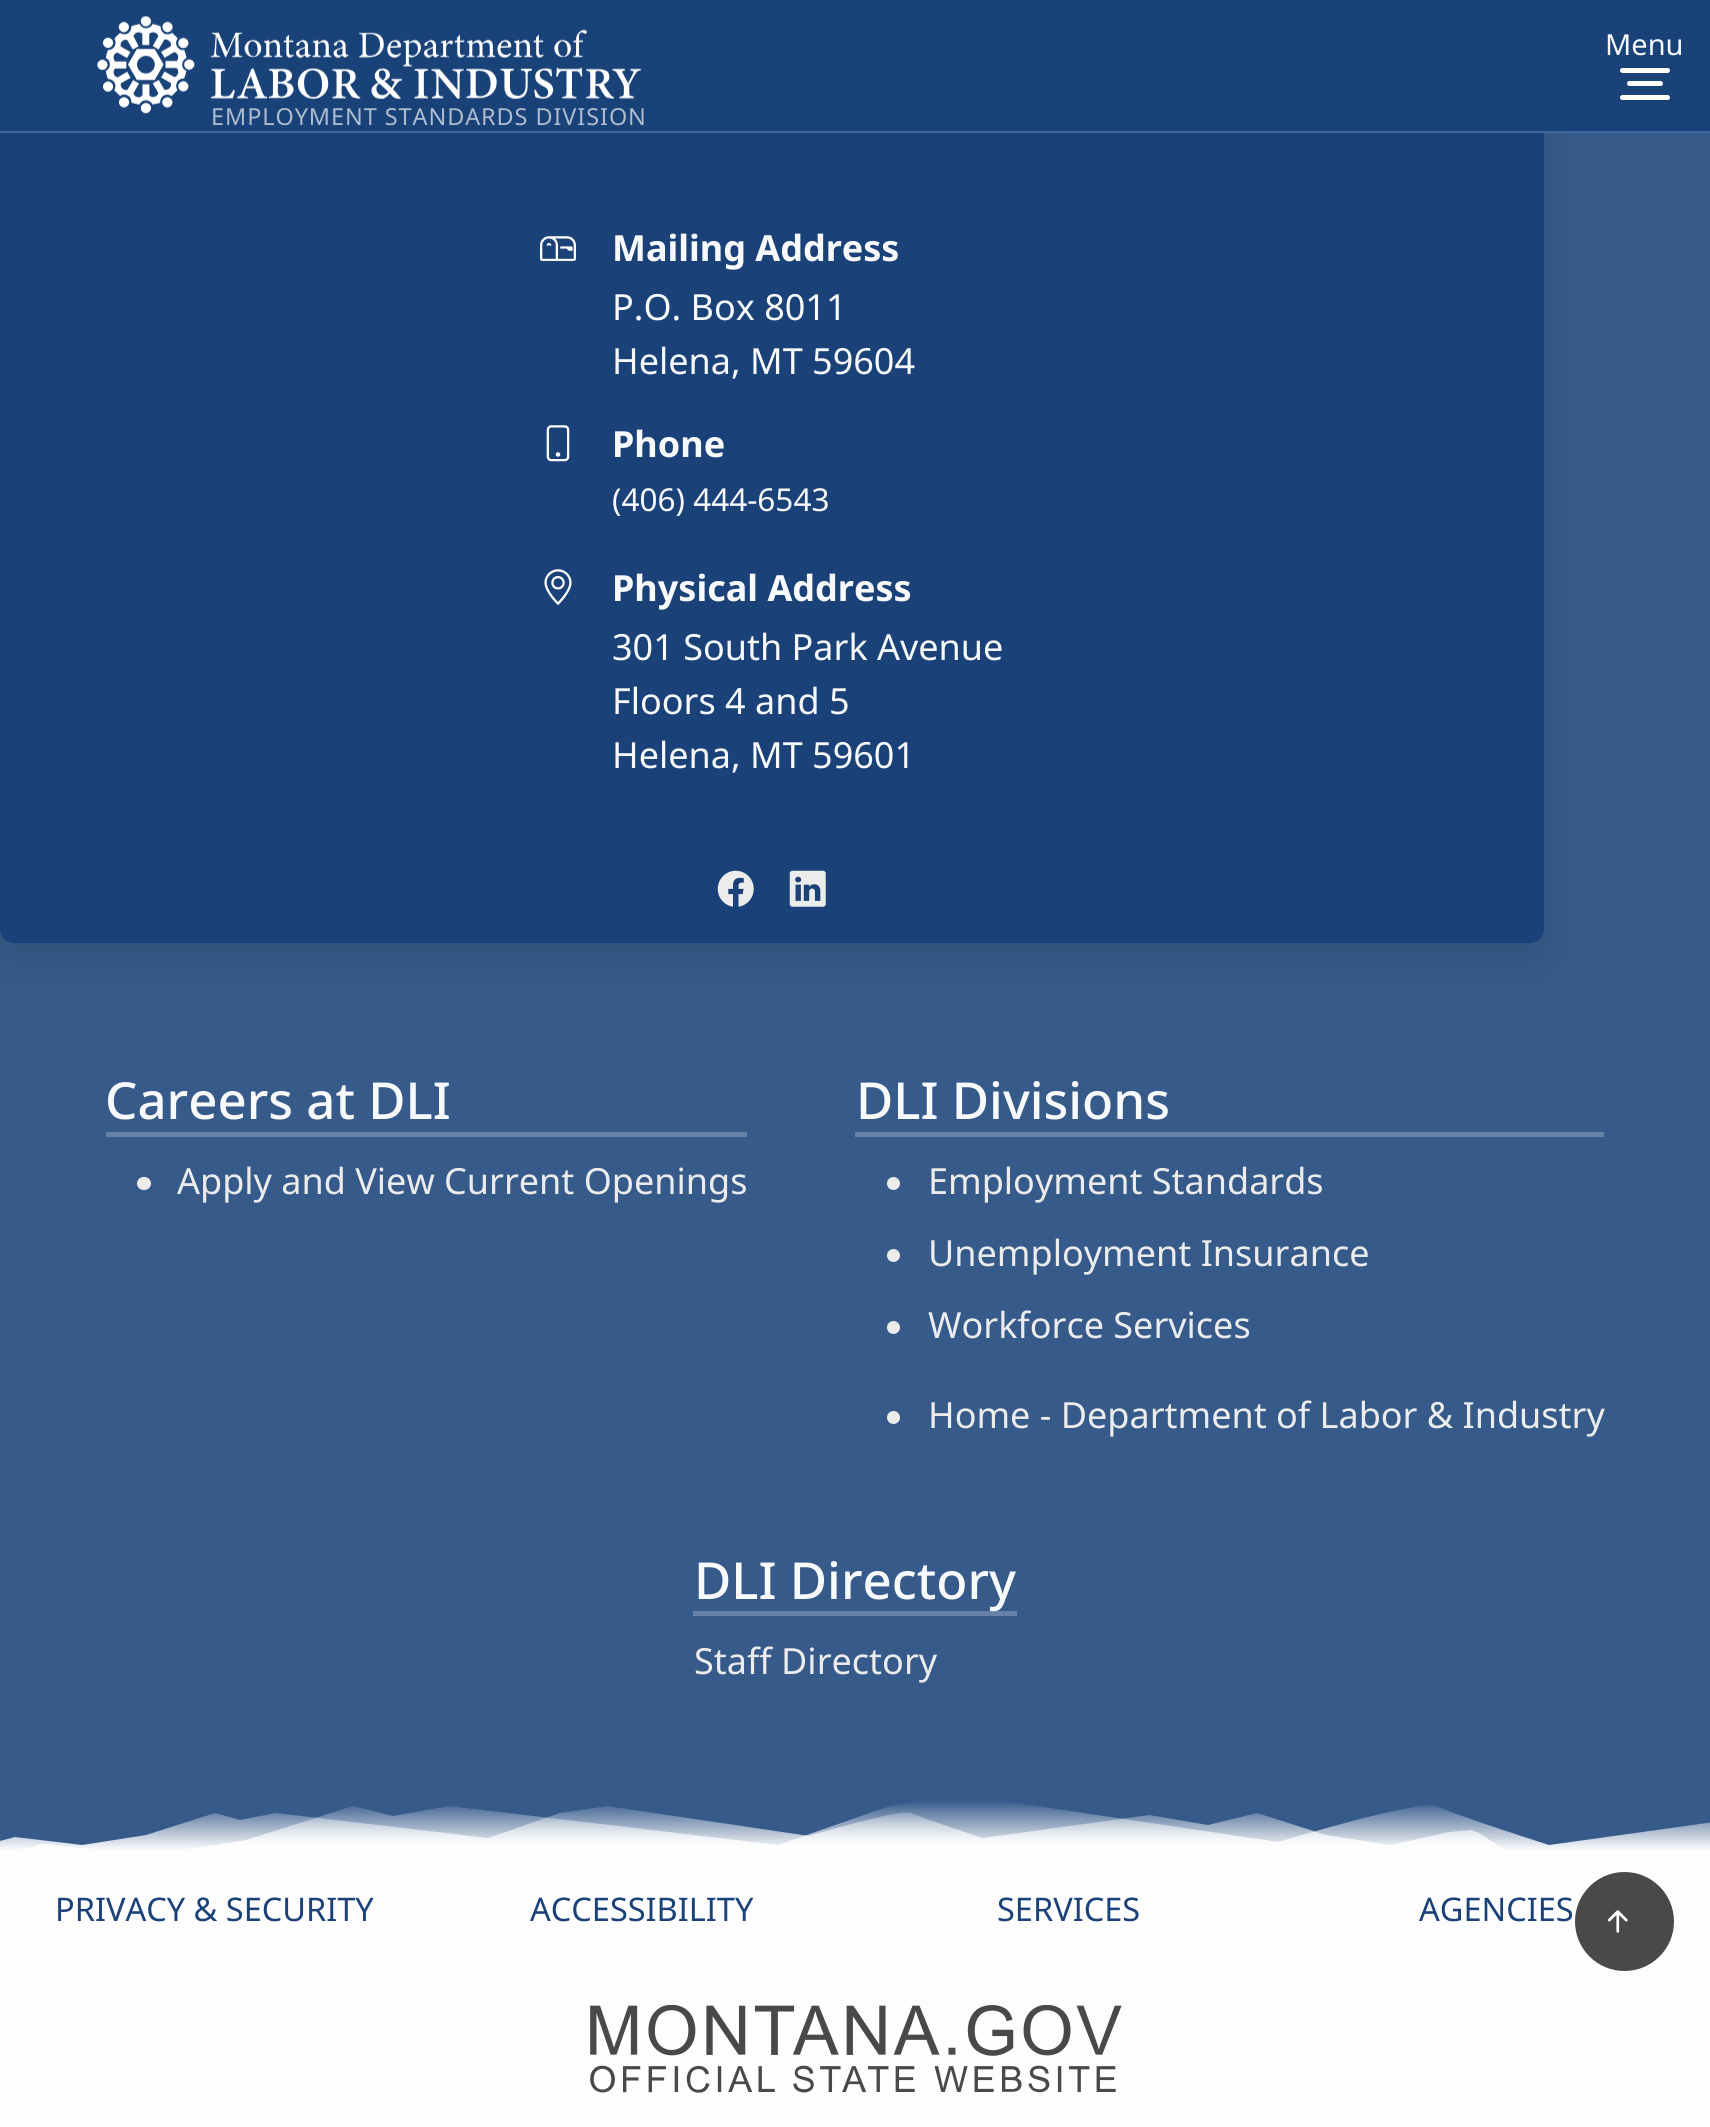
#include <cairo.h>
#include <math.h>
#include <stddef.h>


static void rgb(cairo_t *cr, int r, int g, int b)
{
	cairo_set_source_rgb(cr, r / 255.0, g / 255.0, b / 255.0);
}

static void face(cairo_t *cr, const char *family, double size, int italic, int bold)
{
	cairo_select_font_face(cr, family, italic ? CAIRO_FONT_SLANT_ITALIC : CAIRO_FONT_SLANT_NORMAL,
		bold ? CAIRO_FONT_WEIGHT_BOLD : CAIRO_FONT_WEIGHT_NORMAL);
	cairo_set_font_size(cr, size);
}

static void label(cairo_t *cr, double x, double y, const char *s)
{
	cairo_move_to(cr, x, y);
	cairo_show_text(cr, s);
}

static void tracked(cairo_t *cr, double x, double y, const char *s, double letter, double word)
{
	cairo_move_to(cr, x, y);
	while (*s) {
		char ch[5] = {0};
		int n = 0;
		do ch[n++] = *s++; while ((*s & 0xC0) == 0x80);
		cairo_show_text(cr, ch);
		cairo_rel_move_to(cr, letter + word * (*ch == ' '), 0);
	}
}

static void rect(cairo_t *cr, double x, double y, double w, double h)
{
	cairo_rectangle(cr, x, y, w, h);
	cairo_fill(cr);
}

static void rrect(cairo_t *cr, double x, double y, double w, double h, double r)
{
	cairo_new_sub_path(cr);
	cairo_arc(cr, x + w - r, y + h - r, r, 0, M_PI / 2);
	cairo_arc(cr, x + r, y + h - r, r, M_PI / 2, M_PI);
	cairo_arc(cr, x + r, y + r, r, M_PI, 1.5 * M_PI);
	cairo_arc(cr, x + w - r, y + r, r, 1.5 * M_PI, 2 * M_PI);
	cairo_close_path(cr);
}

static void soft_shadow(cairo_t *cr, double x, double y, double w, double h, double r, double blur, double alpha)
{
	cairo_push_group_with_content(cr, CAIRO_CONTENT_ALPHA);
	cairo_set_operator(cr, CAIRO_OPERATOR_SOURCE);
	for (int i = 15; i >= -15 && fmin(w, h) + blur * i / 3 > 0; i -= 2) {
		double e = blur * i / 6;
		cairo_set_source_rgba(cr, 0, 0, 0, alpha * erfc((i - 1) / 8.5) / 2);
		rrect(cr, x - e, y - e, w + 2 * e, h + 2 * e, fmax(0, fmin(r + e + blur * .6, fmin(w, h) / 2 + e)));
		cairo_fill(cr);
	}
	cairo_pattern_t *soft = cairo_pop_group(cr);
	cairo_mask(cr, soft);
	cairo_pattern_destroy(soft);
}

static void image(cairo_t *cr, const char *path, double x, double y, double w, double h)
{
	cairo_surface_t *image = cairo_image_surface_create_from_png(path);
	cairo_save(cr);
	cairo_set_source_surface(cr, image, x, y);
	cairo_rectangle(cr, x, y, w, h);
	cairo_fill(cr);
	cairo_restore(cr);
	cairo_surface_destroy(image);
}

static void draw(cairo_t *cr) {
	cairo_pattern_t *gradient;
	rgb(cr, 253, 253, 253);
	cairo_paint(cr);
	rgb(cr, 54, 90, 138);
	rect(cr, 0, 0, 1710, 1850);
	rgb(cr, 33, 37, 41);
	soft_shadow(cr, 0, 70, 1544, 891, 14, 18, 0.15);
	rgb(cr, 26, 66, 120);
	rrect(cr, 0, 52, 1544, 891, 14);
	cairo_fill(cr);
	rgb(cr, 33, 124, 186);
	rect(cr, 7, 52, 1530, 9);
	cairo_set_source_rgba(cr, 0.102, 0.259, 0.471, 0.99);
	rect(cr, 0, 0, 1710, 131);
	rgb(cr, 61, 103, 160);
	rect(cr, 0, 131, 1710, 2);
	face(cr, "Noto Sans", 29, 0, 0);
	rgb(cr, 248, 249, 250);
	label(cr, 1605, 55, "Menu");
	rgb(cr, 255, 255, 255);
	rrect(cr, 1620, 68, 50, 5, 2.5);
	cairo_fill(cr);
	rrect(cr, 1627, 81, 36, 5, 2.5);
	cairo_fill(cr);
	rrect(cr, 1620, 95, 50, 5, 2.5);
	cairo_fill(cr);
	image(cr, "image0.png", 97, 16, 544, 98);
	face(cr, "Noto Sans", 23.4, 0, 0);
	rgb(cr, 174, 188, 206);
	tracked(cr, 211, 125, "EMPLOYMENT STANDARDS DIVISION", 0.95, 0);
	image(cr, "image1.png", 540, 236, 36, 25);
	face(cr, "Noto Sans", 36, 0, 1);
	rgb(cr, 248, 249, 250);
	label(cr, 612, 261, "Mailing Address");
	face(cr, "Noto Sans", 36, 0, 0);
	label(cr, 612, 320, "P.O. Box 8011");
	label(cr, 612, 374, "Helena, MT 59604");
	image(cr, "image2.png", 546, 425, 24, 37);
	face(cr, "Noto Sans", 36, 0, 1);
	label(cr, 612, 457, "Phone");
	face(cr, "Noto Sans", 31.5, 0, 0);
	label(cr, 612, 511, "(406) 444-6543");
	image(cr, "image3.png", 544, 569, 28, 37);
	face(cr, "Noto Sans", 36, 0, 1);
	label(cr, 612, 601, "Physical Address");
	face(cr, "Noto Sans", 36, 0, 0);
	label(cr, 612, 660, "301 South Park Avenue");
	label(cr, 612, 714, "Floors 4 and 5");
	label(cr, 612, 768, "Helena, MT 59601");
	image(cr, "image4.png", 717, 870, 37, 37);
	image(cr, "image5.png", 789, 870, 37, 37);
	rgb(cr, 103, 130, 166);
	rect(cr, 106, 1132, 641, 5);
	face(cr, "Noto Sans Medium", 51, 0, 0);
	rgb(cr, 248, 249, 250);
	label(cr, 105, 1119, "Careers at DLI");
	rgb(cr, 236, 236, 236);
	rrect(cr, 137, 1177, 14, 13, 6.5);
	cairo_fill(cr);
	face(cr, "Noto Sans", 36, 0, 0);
	label(cr, 177, 1194, "Apply and View Current Openings");
	rgb(cr, 103, 130, 166);
	rect(cr, 855, 1132, 749, 5);
	face(cr, "Noto Sans Medium", 51, 0, 0);
	rgb(cr, 248, 249, 250);
	label(cr, 856, 1119, "DLI Divisions");
	rgb(cr, 236, 236, 236);
	cairo_new_path(cr);
	cairo_arc(cr, 893.5, 1183.5, 6.5, 0, 2 * M_PI);
	cairo_fill(cr);
	face(cr, "Noto Sans", 36, 0, 0);
	label(cr, 928, 1194, "Employment Standards");
	cairo_new_path(cr);
	cairo_arc(cr, 893.5, 1255.5, 6.5, 0, 2 * M_PI);
	cairo_fill(cr);
	label(cr, 928, 1266, "Unemployment Insurance");
	cairo_new_path(cr);
	cairo_arc(cr, 893.5, 1327.5, 6.5, 0, 2 * M_PI);
	cairo_fill(cr);
	label(cr, 928, 1338, "Workforce Services");
	cairo_new_path(cr);
	cairo_arc(cr, 893.5, 1417.5, 6.5, 0, 2 * M_PI);
	cairo_fill(cr);
	label(cr, 928, 1428, "Home - Department of Labor & Industry");
	rgb(cr, 103, 130, 166);
	rect(cr, 693, 1611, 324, 5);
	face(cr, "Noto Sans Medium", 51, 0, 0);
	rgb(cr, 248, 249, 250);
	label(cr, 694, 1599, "DLI Directory");
	face(cr, "Noto Sans", 36, 0, 0);
	rgb(cr, 236, 236, 236);
	label(cr, 694, 1674, "Staff Directory");
	gradient = cairo_pattern_create_linear(736, 1783, 736, 1851);
	cairo_pattern_add_color_stop_rgba(gradient, 0, 0.212, 0.353, 0.541, 1);
	cairo_pattern_add_color_stop_rgba(gradient, 0.25, 0.212, 0.353, 0.541, 1);
	cairo_pattern_add_color_stop_rgba(gradient, 1, 1, 1, 1, 1);
	cairo_set_source(cr, gradient);
	cairo_pattern_destroy(gradient);
	cairo_new_path(cr);
	cairo_move_to(cr, 1471, 1830);
	cairo_line_to(cr, 1449, 1832);
	cairo_line_to(cr, 1390, 1845);
	cairo_line_to(cr, 1326, 1835);
	cairo_line_to(cr, 1257, 1813);
	cairo_line_to(cr, 1208, 1825);
	cairo_line_to(cr, 1149, 1815);
	cairo_line_to(cr, 983, 1838);
	cairo_curve_to(cr, 983, 1838, 927, 1820, 911, 1813);
	cairo_curve_to(cr, 901, 1808, 809, 1836, 809, 1836);
	cairo_line_to(cr, 607, 1806);
	cairo_line_to(cr, 560, 1813);
	cairo_line_to(cr, 488, 1838);
	cairo_line_to(cr, 276, 1813);
	cairo_line_to(cr, 240, 1820);
	cairo_line_to(cr, 215, 1813);
	cairo_line_to(cr, 146, 1835);
	cairo_line_to(cr, 82, 1845);
	cairo_line_to(cr, 15, 1837);
	cairo_line_to(cr, -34, 1850);
	cairo_line_to(cr, 1505, 1850);
	cairo_line_to(cr, 1479, 1833);
	cairo_close_path(cr);
	cairo_fill(cr);
	cairo_save(cr);
	cairo_rectangle(cr, 0, 1782, 1710, 68);
	cairo_clip(cr);
	gradient = cairo_pattern_create_linear(959, 1783, 959, 1886);
	cairo_pattern_add_color_stop_rgba(gradient, 0, 0.082, 0.082, 0.082, 0);
	cairo_pattern_add_color_stop_rgba(gradient, 0.25, 1, 1, 1, 0);
	cairo_pattern_add_color_stop_rgba(gradient, 1, 1, 1, 1, 1);
	cairo_set_source(cr, gradient);
	cairo_pattern_destroy(gradient);
	cairo_new_path(cr);
	cairo_move_to(cr, 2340, 1885);
	cairo_line_to(cr, 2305, 1887);
	cairo_line_to(cr, 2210, 1909);
	cairo_line_to(cr, 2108, 1892);
	cairo_line_to(cr, 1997, 1858);
	cairo_line_to(cr, 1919, 1877);
	cairo_line_to(cr, 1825, 1860);
	cairo_line_to(cr, 1560, 1897);
	cairo_curve_to(cr, 1560, 1897, 1470, 1869, 1445, 1858);
	cairo_curve_to(cr, 1428, 1850, 1282, 1895, 1282, 1895);
	cairo_line_to(cr, 957, 1846);
	cairo_line_to(cr, 883, 1858);
	cairo_line_to(cr, 767, 1897);
	cairo_line_to(cr, 429, 1858);
	cairo_line_to(cr, 371, 1868);
	cairo_line_to(cr, 330, 1858);
	cairo_line_to(cr, 220, 1892);
	cairo_line_to(cr, 118, 1909);
	cairo_line_to(cr, 15, 1896);
	cairo_line_to(cr, 11, 1896);
	cairo_line_to(cr, -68, 1917);
	cairo_line_to(cr, 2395, 1917);
	cairo_curve_to(cr, 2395, 1917, 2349, 1886, 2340, 1885);
	cairo_close_path(cr);
	cairo_fill(cr);
	gradient = cairo_pattern_create_linear(1163, 1783, 1163, 1851);
	cairo_pattern_add_color_stop_rgba(gradient, 0, 0.118, 0.341, 0.6, 0);
	cairo_pattern_add_color_stop_rgba(gradient, 0.25, 1, 1, 1, 0);
	cairo_pattern_add_color_stop_rgba(gradient, 1, 1, 1, 1, 1);
	cairo_set_source(cr, gradient);
	cairo_pattern_destroy(gradient);
	cairo_new_path(cr);
	cairo_move_to(cr, 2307, 1832);
	cairo_line_to(cr, 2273, 1835);
	cairo_line_to(cr, 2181, 1856);
	cairo_line_to(cr, 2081, 1840);
	cairo_line_to(cr, 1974, 1806);
	cairo_line_to(cr, 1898, 1825);
	cairo_line_to(cr, 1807, 1809);
	cairo_line_to(cr, 1549, 1845);
	cairo_curve_to(cr, 1549, 1845, 1461, 1817, 1436, 1806);
	cairo_curve_to(cr, 1420, 1799, 1278, 1842, 1278, 1842);
	cairo_line_to(cr, 963, 1795);
	cairo_line_to(cr, 890, 1806);
	cairo_line_to(cr, 778, 1845);
	cairo_line_to(cr, 449, 1806);
	cairo_line_to(cr, 393, 1816);
	cairo_line_to(cr, 353, 1806);
	cairo_line_to(cr, 246, 1840);
	cairo_line_to(cr, 147, 1856);
	cairo_line_to(cr, 46, 1844);
	cairo_line_to(cr, 42, 1844);
	cairo_line_to(cr, -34, 1864);
	cairo_line_to(cr, 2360, 1864);
	cairo_curve_to(cr, 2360, 1864, 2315, 1834, 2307, 1832);
	cairo_close_path(cr);
	cairo_fill(cr);
	cairo_restore(cr);
	face(cr, "Noto Sans", 32.5, 0, 0);
	rgb(cr, 26, 66, 120);
	label(cr, 55, 1921, "PRIVACY & SECURITY");
	label(cr, 530, 1921, "ACCESSIBILITY");
	label(cr, 997, 1921, "SERVICES");
	label(cr, 1419, 1921, "AGENCIES");
	image(cr, "image6.png", 590, 2005, 532, 88);
	rgb(cr, 73, 73, 73);
	cairo_arc(cr, 1624.5, 1921.5, 48.5, 0, 2 * M_PI);
	cairo_fill_preserve(cr);
	cairo_stroke(cr);
	image(cr, "image7.png", 1607, 1910, 21, 23);
}

int main(void) {
	cairo_surface_t *surface = cairo_image_surface_create(CAIRO_FORMAT_RGB24, 1710, 2127);
	cairo_t *cr = cairo_create(surface);
	cairo_font_options_t *options = cairo_font_options_create();
	cairo_font_options_set_hint_metrics(options, CAIRO_HINT_METRICS_OFF);
	cairo_font_options_set_hint_style(options, CAIRO_HINT_STYLE_NONE);
	cairo_set_font_options(cr, options);
	cairo_set_miter_limit(cr, 4);
	draw(cr);
	cairo_surface_write_to_png(surface, "render.png");
	cairo_font_options_destroy(options);
	cairo_destroy(cr);
	cairo_surface_destroy(surface);
	return 0;
}
